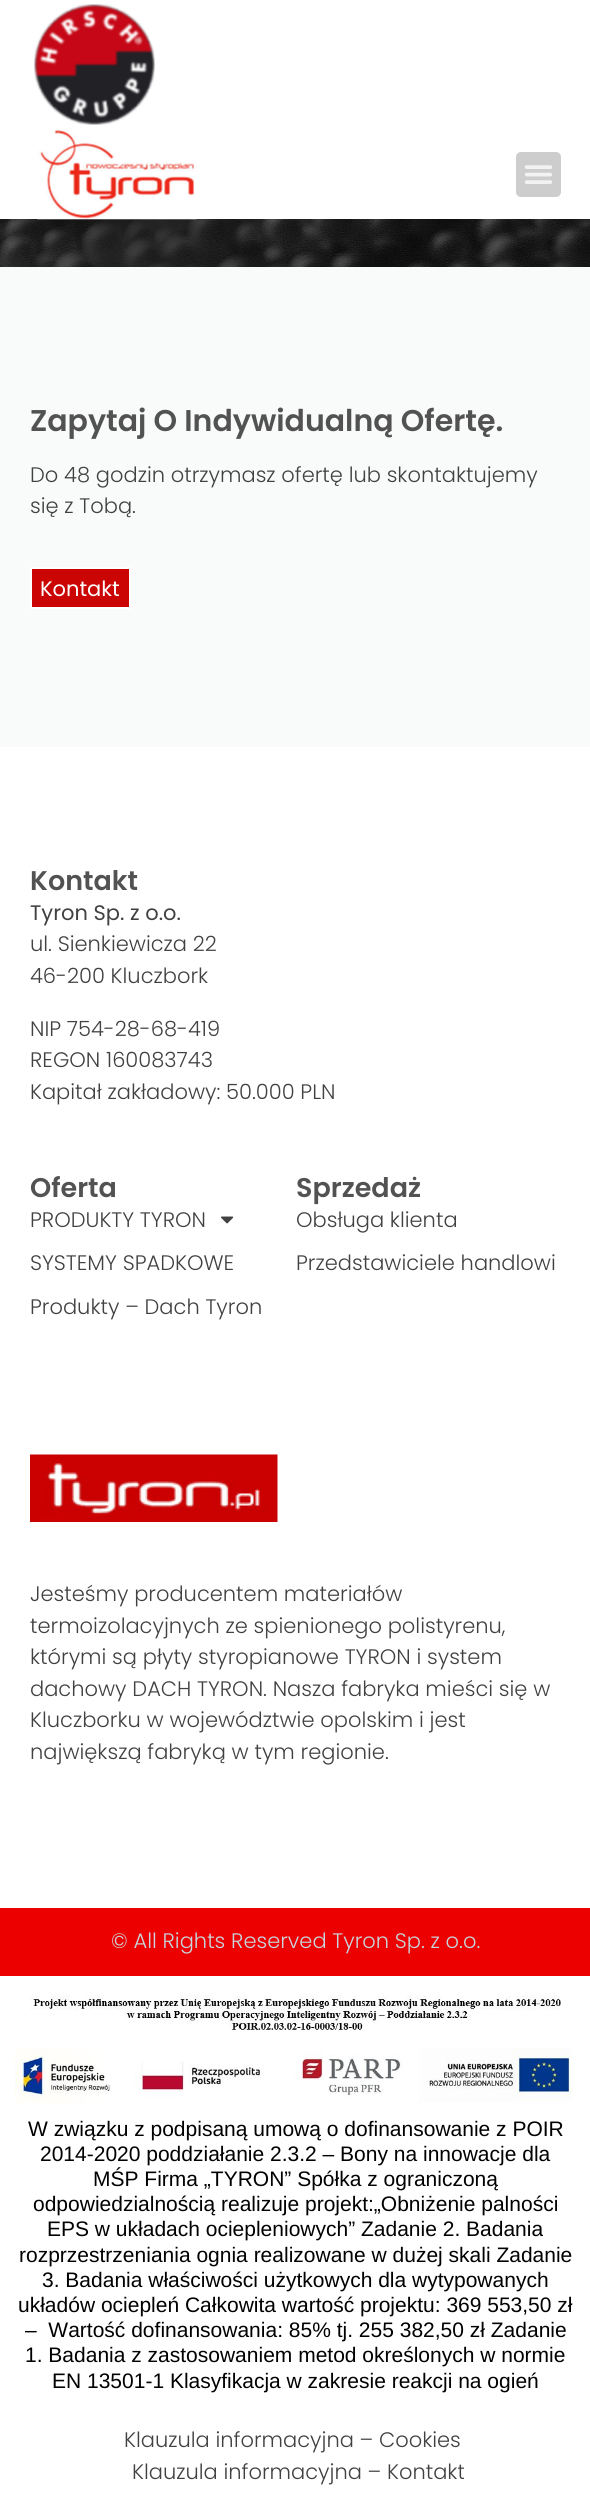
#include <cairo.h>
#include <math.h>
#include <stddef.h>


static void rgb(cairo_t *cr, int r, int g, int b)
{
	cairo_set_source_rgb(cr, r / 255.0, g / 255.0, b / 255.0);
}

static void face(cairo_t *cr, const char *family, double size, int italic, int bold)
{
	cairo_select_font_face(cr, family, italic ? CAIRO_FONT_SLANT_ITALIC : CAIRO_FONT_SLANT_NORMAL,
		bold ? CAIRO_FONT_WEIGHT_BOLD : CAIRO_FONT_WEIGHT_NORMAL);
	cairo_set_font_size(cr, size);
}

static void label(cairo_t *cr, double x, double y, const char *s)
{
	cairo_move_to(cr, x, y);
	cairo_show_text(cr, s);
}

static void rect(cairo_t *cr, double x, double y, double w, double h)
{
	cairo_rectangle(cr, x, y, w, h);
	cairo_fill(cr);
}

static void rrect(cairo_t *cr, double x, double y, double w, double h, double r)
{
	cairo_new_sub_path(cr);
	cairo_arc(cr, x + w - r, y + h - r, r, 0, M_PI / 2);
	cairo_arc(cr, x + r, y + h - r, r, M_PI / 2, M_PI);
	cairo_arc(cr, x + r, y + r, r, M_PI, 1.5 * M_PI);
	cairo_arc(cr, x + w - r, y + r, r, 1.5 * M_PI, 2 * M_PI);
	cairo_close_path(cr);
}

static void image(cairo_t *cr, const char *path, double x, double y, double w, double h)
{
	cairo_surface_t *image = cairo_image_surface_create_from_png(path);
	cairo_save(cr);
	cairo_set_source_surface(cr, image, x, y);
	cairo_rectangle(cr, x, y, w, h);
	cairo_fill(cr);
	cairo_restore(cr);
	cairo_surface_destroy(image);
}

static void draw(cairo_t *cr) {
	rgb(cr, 255, 255, 255);
	cairo_paint(cr);
	image(cr, "image0.png", 34, 4, 121, 121);
	image(cr, "image3.png", 0, 219, 590, 48);
	image(cr, "image1.png", 37, 129, 160, 91);
	rgb(cr, 205, 205, 205);
	rrect(cr, 516, 152, 45, 45, 5);
	cairo_fill(cr);
	image(cr, "image2.png", 524, 165, 29, 19);
	rgb(cr, 249, 250, 250);
	rect(cr, 0, 267, 590, 480);
	face(cr, "Poppins SemiBold", 30, 0, 0);
	rgb(cr, 82, 82, 82);
	label(cr, 30, 431, "Zapytaj O Indywidualną Ofertę.");
	face(cr, "Poppins Light", 21, 0, 0);
	rgb(cr, 65, 65, 65);
	label(cr, 30, 482, "Do 48 godzin otrzymasz ofertę lub skontaktujemy");
	label(cr, 30, 513, "się z Tobą.");
	rgb(cr, 203, 4, 4);
	cairo_rectangle(cr, 31, 568, 99, 40);
	cairo_fill_preserve(cr);
	rgb(cr, 255, 255, 255);
	cairo_stroke(cr);
	face(cr, "Poppins", 21, 0, 0);
	label(cr, 40, 596, "Kontakt");
	face(cr, "Poppins SemiBold", 27, 0, 0);
	rgb(cr, 82, 82, 82);
	label(cr, 30, 890, "Kontakt");
	face(cr, "Poppins", 21, 0, 0);
	rgb(cr, 65, 65, 65);
	label(cr, 30, 920, "Tyron Sp. z o.o.");
	face(cr, "Poppins Light", 21, 0, 0);
	label(cr, 30, 951, "ul. Sienkiewicza 22");
	label(cr, 30, 983, "46-200 Kluczbork");
	label(cr, 30, 1036, "NIP 754-28-68-419");
	label(cr, 30, 1067, "REGON 160083743");
	label(cr, 30, 1099, "Kapitał zakładowy: 50.000 PLN");
	face(cr, "Poppins SemiBold", 27, 0, 0);
	rgb(cr, 82, 82, 82);
	label(cr, 30, 1197, "Oferta");
	face(cr, "Poppins Light", 21, 0, 0);
	rgb(cr, 65, 65, 65);
	label(cr, 30, 1227, "PRODUKTY TYRON");
	image(cr, "image4.png", 221, 1216, 13, 8);
	label(cr, 30, 1270, "SYSTEMY SPADKOWE");
	label(cr, 30, 1314, "Produkty – Dach Tyron");
	face(cr, "Poppins SemiBold", 27, 0, 0);
	rgb(cr, 82, 82, 82);
	label(cr, 296, 1197, "Sprzedaż");
	face(cr, "Poppins Light", 21, 0, 0);
	rgb(cr, 65, 65, 65);
	label(cr, 296, 1227, "Obsługa klienta");
	label(cr, 296, 1270, "Przedstawiciele handlowi");
	image(cr, "image5.png", 30, 1454, 248, 68);
	label(cr, 30, 1601, "Jesteśmy producentem materiałów");
	label(cr, 30, 1633, "termoizolacyjnych ze spienionego polistyrenu,");
	label(cr, 30, 1664, "którymi są płyty styropianowe TYRON i system");
	label(cr, 30, 1696, "dachowy DACH TYRON. Nasza fabryka mieści się w");
	label(cr, 30, 1727, "Kluczborku w województwie opolskim i jest");
	label(cr, 30, 1759, "największą fabryką w tym regionie.");
	rgb(cr, 237, 0, 0);
	rect(cr, 0, 1908, 590, 68);
	rgb(cr, 200, 213, 220);
	label(cr, 111, 1948, "© All Rights Reserved Tyron Sp. z o.o.");
	image(cr, "image6.png", 15, 1995, 557, 109);
	face(cr, "Liberation Sans", 21, 0, 0);
	rgb(cr, 0, 0, 0);
	label(cr, 28, 2136, "W związku z podpisaną umową o dofinansowanie z POIR");
	label(cr, 40, 2161, "2014-2020 poddziałanie 2.3.2 – Bony na innowacje dla");
	label(cr, 93, 2186, "MŚP Firma „TYRON” Spółka z ograniczoną");
	label(cr, 33, 2211, "odpowiedzialnością realizuje projekt:„Obniżenie palności");
	label(cr, 47, 2236, "EPS w układach ociepleniowych” Zadanie 2. Badania");
	label(cr, 19, 2262, "rozprzestrzeniania ognia realizowane w dużej skali Zadanie");
	label(cr, 42, 2287, "3. Badania właściwości użytkowych dla wytypowanych");
	label(cr, 18, 2312, "układów ociepleń Całkowita wartość projektu: 369 553,50 zł");
	label(cr, 25, 2337, "–  Wartość dofinansowania: 85% tj. 255 382,50 zł Zadanie");
	label(cr, 25, 2362, "1. Badania z zastosowaniem metod określonych w normie");
	label(cr, 52, 2388, "EN 13501-1 Klasyfikacja w zakresie reakcji na ogień");
	face(cr, "Poppins Light", 21, 0, 0);
	rgb(cr, 65, 65, 65);
	label(cr, 124, 2447, "Klauzula informacyjna – Cookies");
	label(cr, 132, 2479, "Klauzula informacyjna – Kontakt");
}

int main(void) {
	cairo_surface_t *surface = cairo_image_surface_create(CAIRO_FORMAT_RGB24, 590, 2502);
	cairo_t *cr = cairo_create(surface);
	cairo_font_options_t *options = cairo_font_options_create();
	cairo_font_options_set_hint_metrics(options, CAIRO_HINT_METRICS_OFF);
	cairo_font_options_set_hint_style(options, CAIRO_HINT_STYLE_NONE);
	cairo_set_font_options(cr, options);
	cairo_set_miter_limit(cr, 4);
	draw(cr);
	cairo_surface_write_to_png(surface, "render.png");
	cairo_font_options_destroy(options);
	cairo_destroy(cr);
	cairo_surface_destroy(surface);
	return 0;
}
